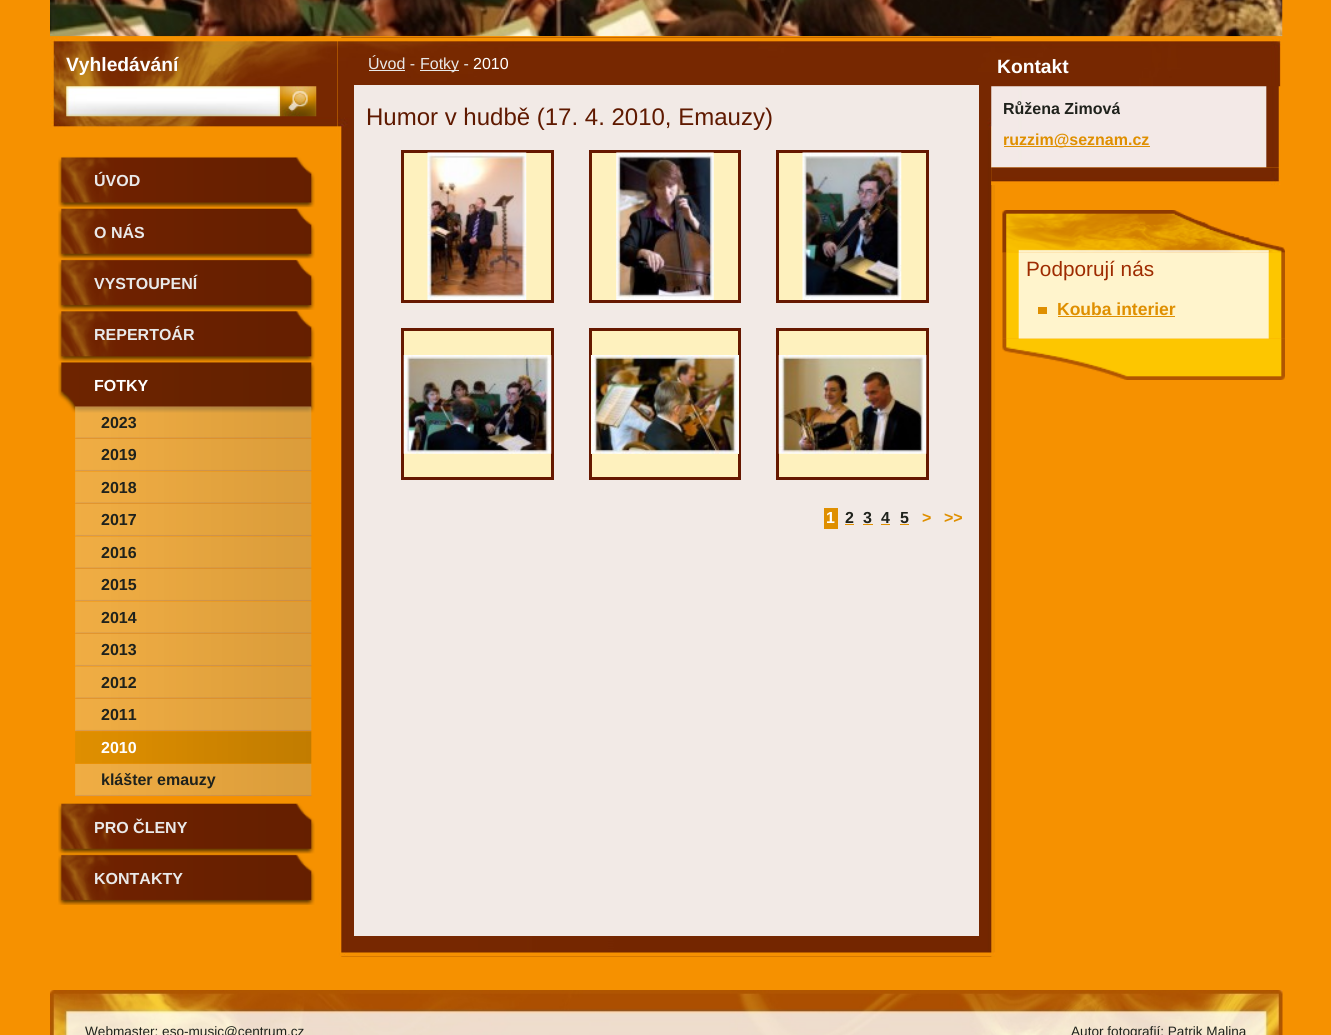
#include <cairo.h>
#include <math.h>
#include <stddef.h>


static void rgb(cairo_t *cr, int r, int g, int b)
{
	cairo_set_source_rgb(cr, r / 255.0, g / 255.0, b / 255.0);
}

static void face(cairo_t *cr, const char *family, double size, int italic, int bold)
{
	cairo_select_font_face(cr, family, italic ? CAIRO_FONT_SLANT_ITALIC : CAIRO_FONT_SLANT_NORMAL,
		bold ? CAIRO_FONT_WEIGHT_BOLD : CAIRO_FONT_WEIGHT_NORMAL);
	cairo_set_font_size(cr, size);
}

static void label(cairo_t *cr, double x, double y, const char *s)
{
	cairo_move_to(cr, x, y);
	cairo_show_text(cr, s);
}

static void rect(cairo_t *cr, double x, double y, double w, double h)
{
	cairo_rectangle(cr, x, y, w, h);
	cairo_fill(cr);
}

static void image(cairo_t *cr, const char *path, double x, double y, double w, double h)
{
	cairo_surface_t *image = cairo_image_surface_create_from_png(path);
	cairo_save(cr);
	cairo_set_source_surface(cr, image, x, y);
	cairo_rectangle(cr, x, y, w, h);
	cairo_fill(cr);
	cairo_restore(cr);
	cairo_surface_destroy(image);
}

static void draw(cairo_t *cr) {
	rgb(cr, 246, 145, 0);
	cairo_paint(cr);
	image(cr, "image0.png", 50, 0, 1233, 37);
	image(cr, "image1.png", 50, 37, 1231, 93);
	face(cr, "Liberation Sans", 19.25, 0, 1);
	rgb(cr, 255, 255, 255);
	label(cr, 66, 71, "Vyhledávání");
	image(cr, "image2.png", 66, 86, 214, 31);
	image(cr, "image3.png", 280, 86, 37, 31);
	image(cr, "image4.png", 337, 37, 658, 920);
	image(cr, "image5.png", 337, 37, 658, 93);
	face(cr, "Liberation Sans", 16, 0, 0);
	rgb(cr, 233, 233, 233);
	label(cr, 368, 69, "Úvod -");
	rect(cr, 369, 70, 36, 1);
	rect(cr, 420, 70, 39, 1);
	label(cr, 420, 69, "Fotky -");
	rgb(cr, 255, 255, 255);
	label(cr, 473, 69, "2010");
	rgb(cr, 242, 234, 230);
	rect(cr, 354, 85, 625, 851);
	face(cr, "Liberation Sans", 24, 0, 0);
	rgb(cr, 95, 25, 0);
	label(cr, 366, 125, "Humor v hudbě (17. 4. 2010, Emauzy)");
	rgb(cr, 254, 241, 190);
	cairo_rectangle(cr, 402.5, 151.5, 150, 150);
	cairo_fill_preserve(cr);
	rgb(cr, 102, 24, 0);
	cairo_set_line_width(cr, 3);
	cairo_stroke(cr);
	image(cr, "image6.png", 427, 152, 100, 148);
	rgb(cr, 254, 241, 190);
	cairo_rectangle(cr, 590.5, 151.5, 149, 150);
	cairo_fill_preserve(cr);
	rgb(cr, 102, 24, 0);
	cairo_stroke(cr);
	image(cr, "image7.png", 616, 152, 98, 148);
	rgb(cr, 254, 241, 190);
	cairo_rectangle(cr, 777.5, 151.5, 150, 150);
	cairo_fill_preserve(cr);
	rgb(cr, 102, 24, 0);
	cairo_stroke(cr);
	image(cr, "image8.png", 802, 152, 100, 148);
	rgb(cr, 254, 241, 190);
	cairo_rectangle(cr, 402.5, 329.5, 150, 149);
	cairo_fill_preserve(cr);
	rgb(cr, 102, 24, 0);
	cairo_stroke(cr);
	image(cr, "image9.png", 403, 355, 149, 99);
	rgb(cr, 254, 241, 190);
	cairo_rectangle(cr, 590.5, 329.5, 149, 149);
	cairo_fill_preserve(cr);
	rgb(cr, 102, 24, 0);
	cairo_stroke(cr);
	rgb(cr, 254, 241, 190);
	rect(cr, 591, 355, 148, 99);
	image(cr, "image10.png", 591, 355, 148, 99);
	cairo_rectangle(cr, 777.5, 329.5, 150, 149);
	cairo_fill_preserve(cr);
	rgb(cr, 102, 24, 0);
	cairo_stroke(cr);
	image(cr, "image11.png", 778, 355, 149, 99);
	rgb(cr, 223, 143, 0);
	rect(cr, 824, 508, 14, 21);
	face(cr, "Liberation Sans", 16, 0, 1);
	rgb(cr, 255, 255, 255);
	label(cr, 826, 523, "1");
	rgb(cr, 31, 34, 28);
	label(cr, 845, 523, "2");
	rgb(cr, 223, 143, 0);
	rect(cr, 845, 524, 9, 1);
	rgb(cr, 31, 34, 28);
	label(cr, 863, 523, "3");
	rgb(cr, 223, 143, 0);
	rect(cr, 863, 524, 10, 1);
	rgb(cr, 31, 34, 28);
	label(cr, 881, 523, "4");
	rgb(cr, 223, 143, 0);
	rect(cr, 881, 524, 9, 1);
	rgb(cr, 31, 34, 28);
	label(cr, 900, 523, "5");
	rgb(cr, 223, 143, 0);
	rect(cr, 900, 524, 9, 1);
	label(cr, 922, 523, ">");
	label(cr, 944, 523, ">>");
	image(cr, "image12.png", 339, 952, 656, 4);
	face(cr, "Liberation Sans", 19.25, 0, 1);
	rgb(cr, 255, 255, 255);
	label(cr, 997, 73, "Kontakt");
	image(cr, "image13.png", 991, 86, 290, 82);
	face(cr, "Liberation Sans", 16, 0, 1);
	rgb(cr, 31, 34, 28);
	label(cr, 1003, 114, "Růžena Zimová");
	rgb(cr, 223, 143, 0);
	rect(cr, 1004, 146, 146, 1);
	label(cr, 1003, 145, "ruzzim@seznam.cz");
	image(cr, "image14.png", 991, 167, 290, 18);
	image(cr, "image15.png", 1002, 210, 283, 43);
	image(cr, "image16.png", 1002, 210, 283, 43);
	image(cr, "image17.png", 1002, 252, 283, 87);
	face(cr, "Liberation Sans", 20.75, 0, 0);
	rgb(cr, 158, 43, 0);
	label(cr, 1026, 276, "Podporují nás");
	rgb(cr, 223, 143, 0);
	rect(cr, 1038, 307, 9, 7);
	face(cr, "Liberation Sans", 17.5, 0, 1);
	label(cr, 1057, 315, "Kouba interier");
	rect(cr, 1058, 316, 117, 1);
	image(cr, "image18.png", 1002, 338, 283, 42);
	image(cr, "image19.png", 58, 156, 257, 52);
	face(cr, "Liberation Sans", 16, 0, 1);
	rgb(cr, 233, 233, 233);
	label(cr, 94, 186, "ÚVOD");
	image(cr, "image20.png", 58, 208, 257, 51);
	label(cr, 94, 238, "O NÁS");
	image(cr, "image21.png", 58, 259, 257, 51);
	label(cr, 94, 289, "VYSTOUPENÍ");
	image(cr, "image22.png", 58, 310, 257, 51);
	label(cr, 94, 340, "REPERTOÁR");
	image(cr, "image23.png", 58, 361, 257, 52);
	rgb(cr, 255, 255, 255);
	label(cr, 94, 391, "FOTKY");
	image(cr, "image24.png", 75, 406, 237, 33);
	rgb(cr, 31, 34, 28);
	label(cr, 101, 428, "2023");
	image(cr, "image25.png", 75, 439, 237, 33);
	label(cr, 101, 460, "2019");
	image(cr, "image26.png", 75, 471, 237, 33);
	label(cr, 101, 493, "2018");
	image(cr, "image25.png", 75, 504, 237, 33);
	label(cr, 101, 525, "2017");
	image(cr, "image26.png", 75, 536, 237, 33);
	label(cr, 101, 558, "2016");
	image(cr, "image25.png", 75, 569, 237, 33);
	label(cr, 101, 590, "2015");
	image(cr, "image26.png", 75, 601, 237, 33);
	label(cr, 101, 623, "2014");
	image(cr, "image25.png", 75, 634, 237, 33);
	label(cr, 101, 655, "2013");
	image(cr, "image26.png", 75, 666, 237, 33);
	label(cr, 101, 688, "2012");
	image(cr, "image25.png", 75, 699, 237, 33);
	label(cr, 101, 720, "2011");
	image(cr, "image27.png", 75, 731, 237, 33);
	rgb(cr, 255, 255, 255);
	label(cr, 101, 753, "2010");
	image(cr, "image28.png", 75, 763, 237, 34);
	rgb(cr, 31, 34, 28);
	label(cr, 101, 785, "klášter emauzy");
	image(cr, "image20.png", 58, 803, 257, 51);
	rgb(cr, 233, 233, 233);
	label(cr, 94, 833, "PRO ČLENY");
	image(cr, "image21.png", 58, 854, 257, 51);
	label(cr, 94, 884, "KONTAKTY");
	image(cr, "image29.png", 50, 990, 1233, 45);
	face(cr, "Liberation Sans", 13.6, 0, 0);
	rgb(cr, 31, 34, 28);
	label(cr, 85, 1036, "Webmaster: eso-music@centrum.cz");
	label(cr, 1071, 1036, "Autor fotografií: Patrik Malina");
}

int main(void) {
	cairo_surface_t *surface = cairo_image_surface_create(CAIRO_FORMAT_RGB24, 1331, 1035);
	cairo_t *cr = cairo_create(surface);
	cairo_font_options_t *options = cairo_font_options_create();
	cairo_font_options_set_hint_metrics(options, CAIRO_HINT_METRICS_OFF);
	cairo_font_options_set_hint_style(options, CAIRO_HINT_STYLE_NONE);
	cairo_set_font_options(cr, options);
	cairo_set_miter_limit(cr, 4);
	draw(cr);
	cairo_surface_write_to_png(surface, "render.png");
	cairo_font_options_destroy(options);
	cairo_destroy(cr);
	cairo_surface_destroy(surface);
	return 0;
}
